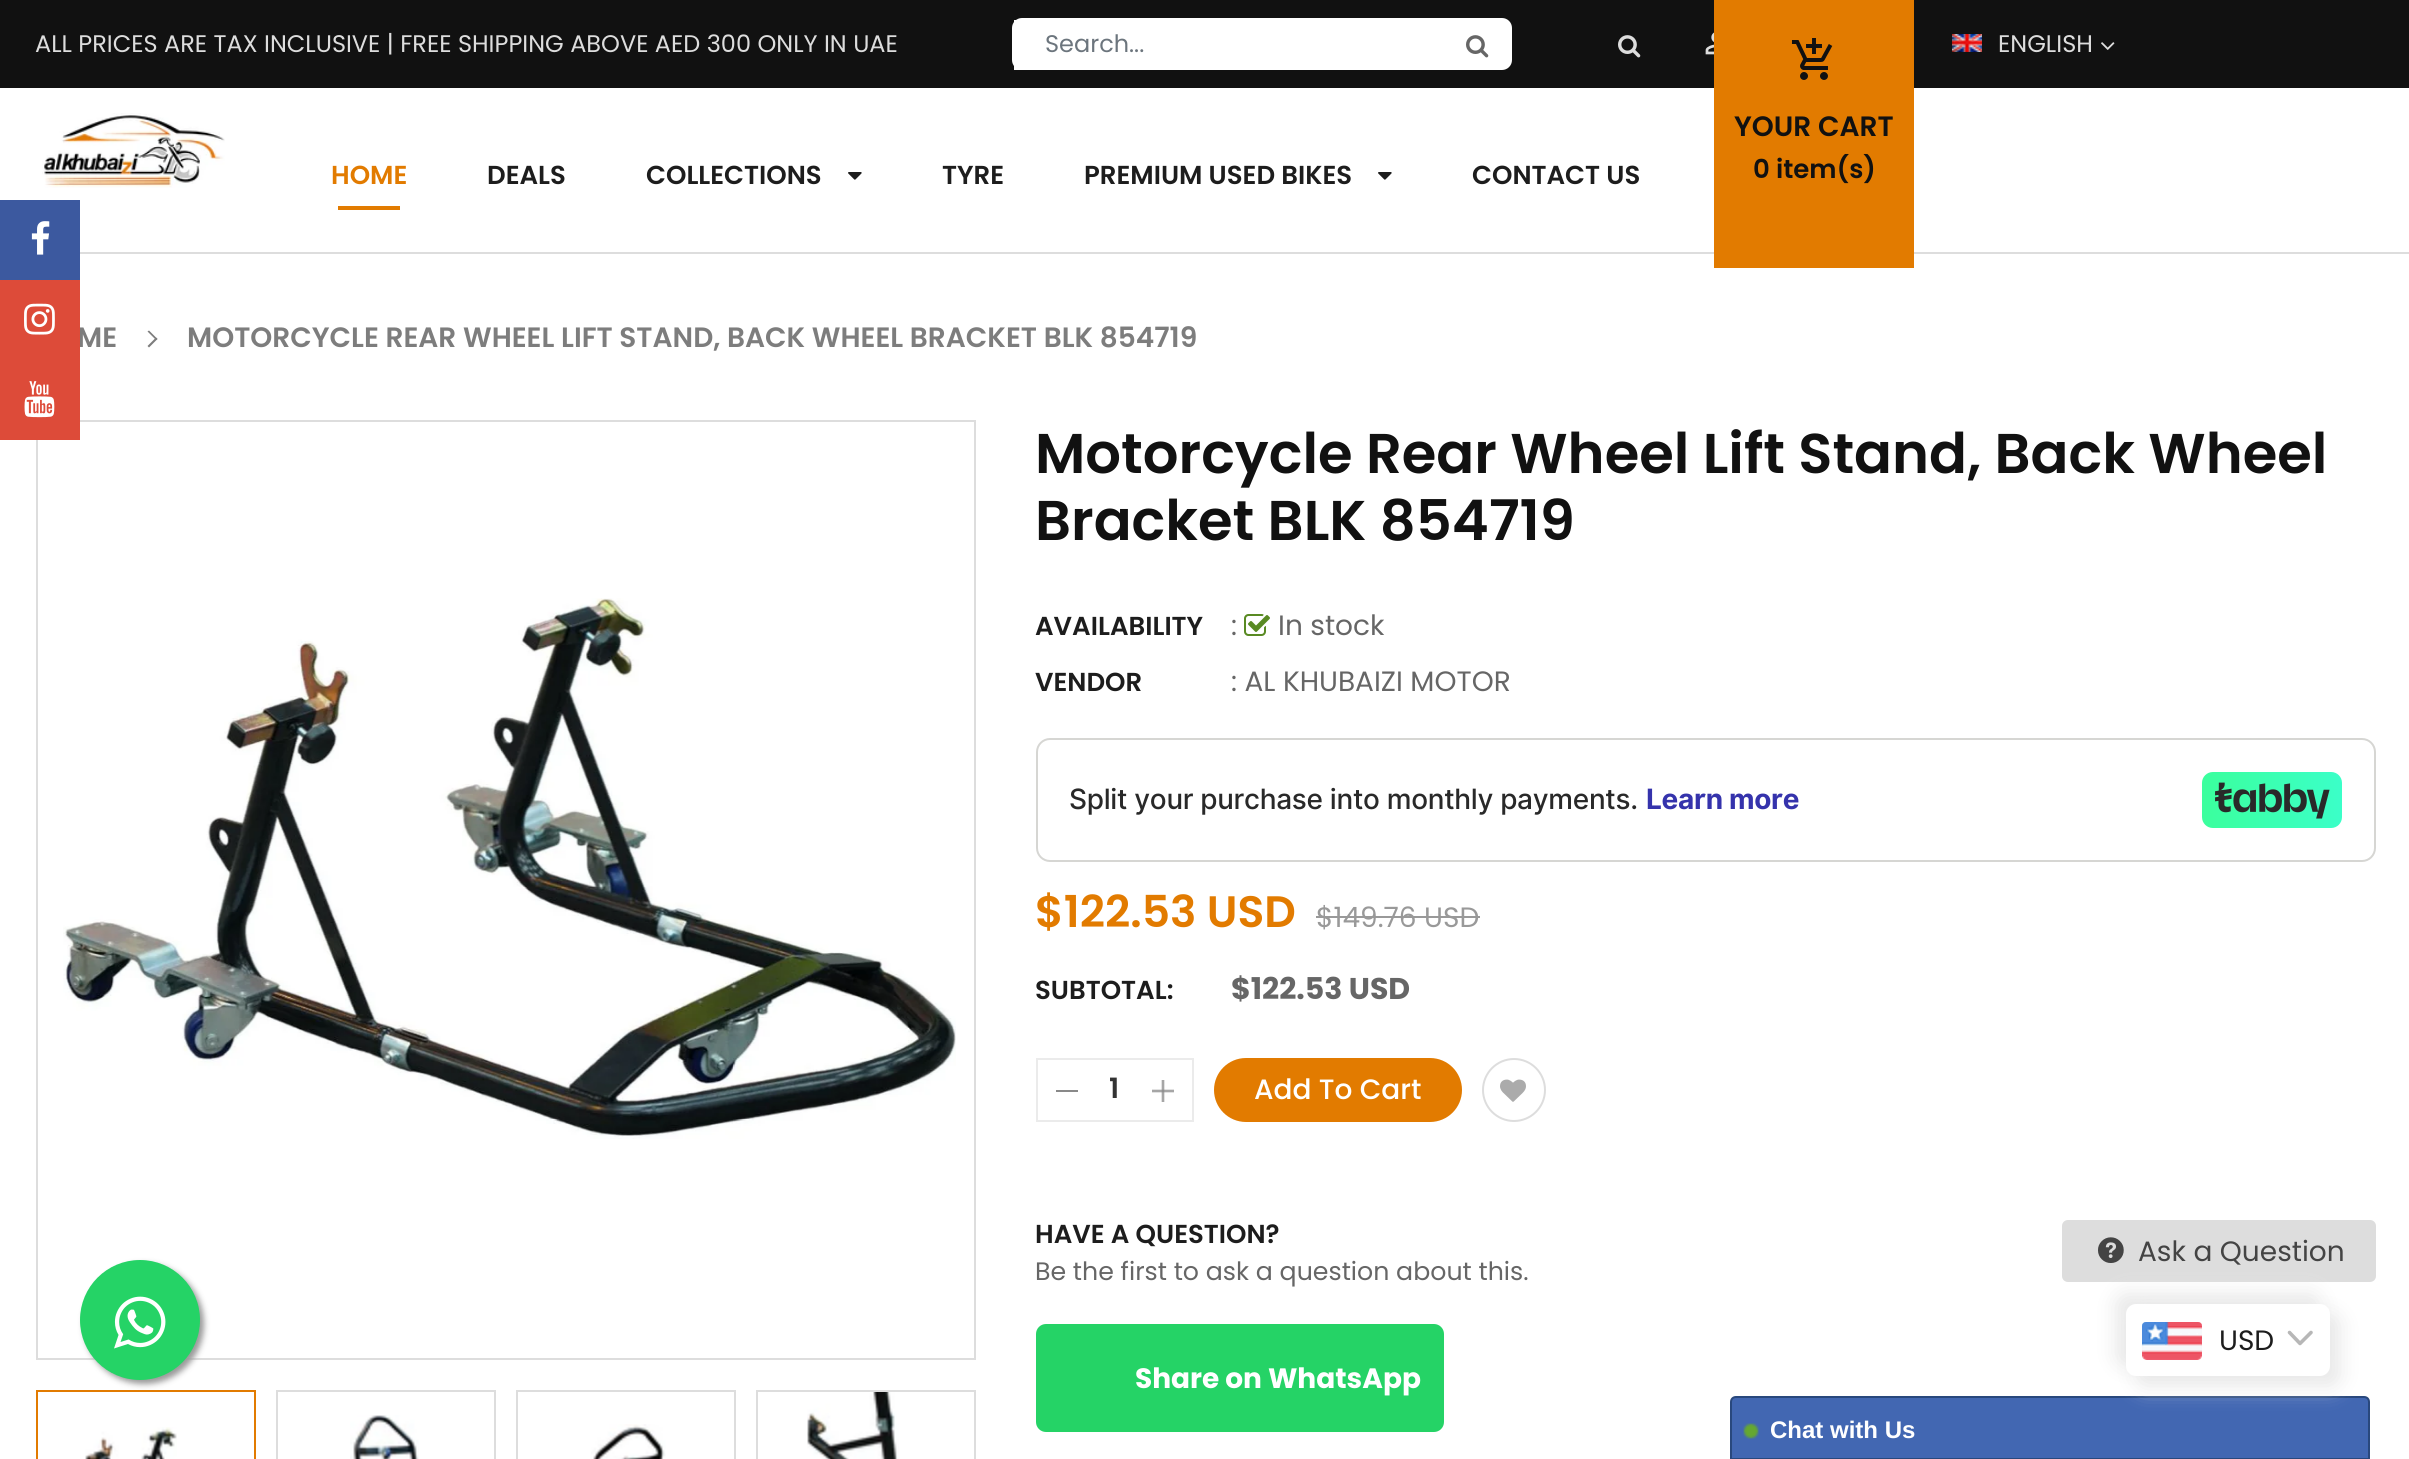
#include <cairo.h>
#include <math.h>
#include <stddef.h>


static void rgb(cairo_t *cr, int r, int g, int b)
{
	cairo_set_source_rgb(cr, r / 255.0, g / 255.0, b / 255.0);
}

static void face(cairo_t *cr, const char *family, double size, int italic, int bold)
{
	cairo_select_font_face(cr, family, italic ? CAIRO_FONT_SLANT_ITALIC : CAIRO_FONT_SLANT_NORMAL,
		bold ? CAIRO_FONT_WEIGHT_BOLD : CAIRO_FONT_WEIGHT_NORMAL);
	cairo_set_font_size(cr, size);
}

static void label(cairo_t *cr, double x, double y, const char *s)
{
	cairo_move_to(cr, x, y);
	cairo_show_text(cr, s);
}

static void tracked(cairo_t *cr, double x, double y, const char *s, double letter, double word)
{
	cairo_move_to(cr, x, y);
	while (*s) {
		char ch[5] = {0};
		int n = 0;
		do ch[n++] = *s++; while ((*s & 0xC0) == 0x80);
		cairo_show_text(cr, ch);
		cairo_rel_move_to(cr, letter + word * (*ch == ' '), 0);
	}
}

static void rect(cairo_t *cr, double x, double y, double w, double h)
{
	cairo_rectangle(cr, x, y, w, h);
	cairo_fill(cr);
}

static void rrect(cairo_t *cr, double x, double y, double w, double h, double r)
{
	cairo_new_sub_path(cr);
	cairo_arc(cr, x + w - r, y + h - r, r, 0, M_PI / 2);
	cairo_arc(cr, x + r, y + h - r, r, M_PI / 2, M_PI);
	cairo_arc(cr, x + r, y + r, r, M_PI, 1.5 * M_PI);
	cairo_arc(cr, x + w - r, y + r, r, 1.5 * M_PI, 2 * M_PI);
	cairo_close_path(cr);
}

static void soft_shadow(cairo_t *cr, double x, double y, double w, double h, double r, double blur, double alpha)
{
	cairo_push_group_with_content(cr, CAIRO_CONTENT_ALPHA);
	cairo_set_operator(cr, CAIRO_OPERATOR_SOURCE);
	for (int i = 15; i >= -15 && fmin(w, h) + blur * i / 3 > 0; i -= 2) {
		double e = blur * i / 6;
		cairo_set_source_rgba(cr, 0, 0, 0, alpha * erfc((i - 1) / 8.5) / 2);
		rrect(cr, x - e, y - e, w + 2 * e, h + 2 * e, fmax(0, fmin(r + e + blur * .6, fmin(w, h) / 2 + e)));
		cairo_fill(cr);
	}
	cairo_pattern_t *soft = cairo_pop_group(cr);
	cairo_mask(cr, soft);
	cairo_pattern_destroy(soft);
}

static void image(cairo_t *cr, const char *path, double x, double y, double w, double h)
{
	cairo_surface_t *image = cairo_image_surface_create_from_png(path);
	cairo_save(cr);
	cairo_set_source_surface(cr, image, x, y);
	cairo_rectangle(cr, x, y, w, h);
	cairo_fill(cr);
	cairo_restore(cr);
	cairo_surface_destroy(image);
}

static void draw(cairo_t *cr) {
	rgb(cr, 255, 255, 255);
	cairo_paint(cr);
	rgb(cr, 221, 221, 221);
	rect(cr, 80, 252, 2329, 2);
	rgb(cr, 17, 17, 17);
	rect(cr, 0, 0, 2409, 88);
	face(cr, "Poppins", 24, 0, 0);
	rgb(cr, 221, 221, 221);
	label(cr, 35, 52, "ALL PRICES ARE TAX INCLUSIVE | FREE SHIPPING ABOVE AED 300 ONLY IN UAE");
	rgb(cr, 255, 255, 255);
	rrect(cr, 1012, 18, 500, 52, 10);
	cairo_fill(cr);
	rect(cr, 1014, 20, 8, 50);
	rgb(cr, 108, 117, 125);
	label(cr, 1045, 52, "Search...");
	image(cr, "image0.png", 1466, 35, 23, 23);
	image(cr, "image1.png", 1618, 35, 23, 23);
	image(cr, "image2.png", 1705, 32, 9, 23);
	image(cr, "image3.png", 1952, 34, 30, 18);
	rgb(cr, 221, 221, 221);
	label(cr, 1998, 52, "ENGLISH");
	image(cr, "image4.png", 2101, 42, 14, 8);
	image(cr, "image5.png", 42, 113, 183, 75);
	face(cr, "Poppins SemiBold", 26, 0, 0);
	rgb(cr, 226, 123, 0);
	label(cr, 331, 184, "HOME");
	rect(cr, 338, 206, 62, 4);
	rgb(cr, 29, 29, 29);
	label(cr, 487, 184, "DEALS");
	label(cr, 646, 184, "COLLECTIONS");
	image(cr, "image6.png", 848, 172, 14, 8);
	label(cr, 942, 184, "TYRE");
	label(cr, 1084, 184, "PREMIUM USED BIKES");
	image(cr, "image6.png", 1378, 172, 14, 8);
	label(cr, 1472, 184, "CONTACT US");
	rgb(cr, 226, 123, 0);
	rect(cr, 1714, 0, 200, 268);
	image(cr, "image7.png", 1791, 38, 42, 42);
	face(cr, "Poppins SemiBold", 28, 0, 0);
	rgb(cr, 17, 17, 17);
	label(cr, 1734, 136, "YOUR CART");
	face(cr, "Poppins SemiBold", 26, 0, 0);
	label(cr, 1753, 178, "0 item(s)");
	face(cr, "Poppins SemiBold", 28, 0, 0);
	rgb(cr, 125, 125, 125);
	label(cr, 77, 347, "ME");
	cairo_new_path(cr);
	cairo_move_to(cr, 149, 330.5);
	cairo_line_to(cr, 157.5, 339);
	cairo_line_to(cr, 156, 340);
	cairo_line_to(cr, 147.5, 331.5);
	cairo_close_path(cr);
	cairo_fill(cr);
	cairo_new_path(cr);
	cairo_move_to(cr, 156, 337.5);
	cairo_line_to(cr, 157.5, 339);
	cairo_line_to(cr, 149, 347.5);
	cairo_line_to(cr, 147.5, 346);
	cairo_close_path(cr);
	cairo_fill(cr);
	label(cr, 187, 347, "MOTORCYCLE REAR WHEEL LIFT STAND, BACK WHEEL BRACKET BLK 854719");
	cairo_rectangle(cr, 37, 421, 938, 938);
	rgb(cr, 221, 221, 221);
	cairo_stroke(cr);
	image(cr, "image8.png", 63, 598, 893, 541);
	cairo_rectangle(cr, 37, 1391, 218, 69);
	rgb(cr, 226, 123, 0);
	cairo_stroke(cr);
	image(cr, "image9.png", 85, 1427, 92, 32);
	cairo_rectangle(cr, 277, 1391, 218, 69);
	rgb(cr, 221, 221, 221);
	cairo_stroke(cr);
	image(cr, "image10.png", 350, 1415, 69, 44);
	cairo_rectangle(cr, 517, 1391, 218, 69);
	cairo_stroke(cr);
	image(cr, "image11.png", 591, 1424, 75, 35);
	cairo_rectangle(cr, 757, 1391, 218, 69);
	cairo_stroke(cr);
	image(cr, "image12.png", 807, 1392, 92, 67);
	face(cr, "Poppins SemiBold", 56, 0, 0);
	rgb(cr, 17, 17, 17);
	label(cr, 1035, 473, "Motorcycle Rear Wheel Lift Stand, Back Wheel");
	label(cr, 1035, 540, "Bracket BLK 854719");
	face(cr, "Poppins SemiBold", 26, 0, 0);
	rgb(cr, 29, 29, 29);
	label(cr, 1035, 635, "AVAILABILITY");
	face(cr, "Poppins", 28, 0, 0);
	rgb(cr, 102, 102, 102);
	label(cr, 1231, 635, ":");
	image(cr, "image13.png", 1244, 614, 26, 22);
	label(cr, 1278, 635, "In stock");
	face(cr, "Poppins SemiBold", 26, 0, 0);
	rgb(cr, 29, 29, 29);
	label(cr, 1035, 691, "VENDOR");
	face(cr, "Poppins", 28, 0, 0);
	rgb(cr, 102, 102, 102);
	label(cr, 1231, 691, ": AL KHUBAIZI MOTOR");
	rrect(cr, 1037, 739, 1338, 122, 13);
	rgb(cr, 214, 214, 211);
	cairo_stroke(cr);
	face(cr, "Inter Medium", 28, 0, 0);
	rgb(cr, 41, 41, 41);
	tracked(cr, 1069, 809, "Split your purchase into monthly payments.", -0.3, 0);
	face(cr, "Inter", 28, 0, 1);
	rgb(cr, 53, 51, 172);
	tracked(cr, 1646, 809, "Learn more", -0.3, 0);
	image(cr, "image14.png", 2202, 772, 140, 56);
	face(cr, "Poppins SemiBold", 44, 0, 0);
	rgb(cr, 226, 123, 0);
	label(cr, 1035, 927, "$122.53 USD");
	face(cr, "Poppins", 28, 0, 0);
	rgb(cr, 153, 153, 153);
	label(cr, 1316, 927, "$149.76 USD");
	rect(cr, 1316, 916, 164, 2);
	face(cr, "Poppins SemiBold", 26, 0, 0);
	rgb(cr, 29, 29, 29);
	label(cr, 1035, 999, "SUBTOTAL:");
	face(cr, "Poppins", 30, 0, 1);
	rgb(cr, 102, 102, 102);
	label(cr, 1231, 999, "$122.53 USD");
	cairo_rectangle(cr, 1037, 1059, 156, 62);
	rgb(cr, 235, 235, 235);
	cairo_stroke(cr);
	rgb(cr, 137, 137, 137);
	rect(cr, 1056, 1090, 22, 2);
	face(cr, "Poppins SemiBold", 28, 0, 0);
	rgb(cr, 51, 51, 51);
	label(cr, 1109, 1098, "1");
	image(cr, "image15.png", 1152, 1080, 22, 22);
	rgb(cr, 226, 123, 0);
	rrect(cr, 1214, 1058, 248, 64, 32);
	cairo_fill(cr);
	face(cr, "Poppins Medium", 28, 0, 0);
	rgb(cr, 255, 255, 255);
	label(cr, 1254, 1099, "Add To Cart");
	cairo_new_path(cr);
	cairo_arc(cr, 1514, 1090, 31, 0, 2 * M_PI);
	rgb(cr, 221, 221, 221);
	cairo_stroke(cr);
	image(cr, "image16.png", 1500, 1079, 26, 23);
	face(cr, "Poppins SemiBold", 26, 0, 0);
	rgb(cr, 29, 29, 29);
	label(cr, 1035, 1243, "HAVE A QUESTION?");
	face(cr, "Poppins", 25.25, 0, 0);
	rgb(cr, 102, 102, 102);
	label(cr, 1035, 1280, "Be the first to ask a question about this.");
	rgb(cr, 221, 221, 221);
	rrect(cr, 2062, 1220, 314, 62, 6);
	cairo_fill(cr);
	image(cr, "image17.png", 2098, 1237, 26, 26);
	face(cr, "Poppins", 28, 0, 0);
	rgb(cr, 68, 68, 68);
	label(cr, 2138, 1261, "Ask a Question");
	rgb(cr, 37, 211, 102);
	rrect(cr, 1036, 1324, 408, 108, 10);
	cairo_fill(cr);
	face(cr, "Poppins", 28, 0, 1);
	rgb(cr, 255, 255, 255);
	label(cr, 1135, 1388, "Share on WhatsApp");
	rgb(cr, 60, 89, 159);
	rect(cr, 0, 200, 80, 80);
	image(cr, "image18.png", 31, 221, 19, 34);
	rgb(cr, 221, 75, 57);
	rect(cr, 0, 280, 80, 160);
	image(cr, "image19.png", 24, 303, 31, 32);
	image(cr, "image20.png", 24, 381, 31, 37);
	rgb(cr, 153, 153, 153);
	soft_shadow(cr, 84, 1264, 120, 120, 60, 3, 1);
	rgb(cr, 37, 211, 102);
	cairo_arc(cr, 140, 1320, 60, 0, 2 * M_PI);
	cairo_fill(cr);
	image(cr, "image21.png", 114, 1296, 52, 53);
	rgb(cr, 66, 103, 178);
	cairo_new_path(cr);
	cairo_move_to(cr, 1736, 1397);
	cairo_line_to(cr, 2364, 1397);
	cairo_curve_to(cr, 2367, 1397, 2369, 1399, 2369, 1402);
	cairo_line_to(cr, 2369, 1459);
	cairo_line_to(cr, 1731, 1459);
	cairo_line_to(cr, 1731, 1402);
	cairo_curve_to(cr, 1731, 1399, 1733, 1397, 1736, 1397);
	cairo_close_path(cr);
	cairo_fill_preserve(cr);
	rgb(cr, 41, 72, 125);
	cairo_stroke(cr);
	rgb(cr, 232, 232, 232);
	soft_shadow(cr, 2116, 1294, 204, 72, 10, 10, 1);
	soft_shadow(cr, 2136, 1314, 204, 72, 10, 10, 1);
	rgb(cr, 255, 255, 255);
	rrect(cr, 2126, 1304, 204, 72, 10);
	cairo_fill(cr);
	image(cr, "image22.png", 2142, 1322, 60, 38);
	face(cr, "Poppins", 28, 0, 0);
	rgb(cr, 29, 29, 29);
	label(cr, 2219, 1350, "USD");
	cairo_new_path(cr);
	cairo_move_to(cr, 2289.5, 1332.5);
	cairo_line_to(cr, 2300, 1343.5);
	cairo_line_to(cr, 2311, 1332.5);
	rgb(cr, 183, 183, 183);
	cairo_set_line_width(cr, 3.6);
	cairo_set_line_cap(cr, CAIRO_LINE_CAP_ROUND);
	cairo_set_line_join(cr, CAIRO_LINE_JOIN_ROUND);
	cairo_stroke(cr);
	image(cr, "image23.png", 1743, 1423, 16, 16);
	face(cr, "Liberation Sans", 24, 0, 1);
	rgb(cr, 255, 255, 255);
	label(cr, 1770, 1438, "Chat with Us");
}

int main(void) {
	cairo_surface_t *surface = cairo_image_surface_create(CAIRO_FORMAT_RGB24, 2409, 1459);
	cairo_t *cr = cairo_create(surface);
	cairo_font_options_t *options = cairo_font_options_create();
	cairo_font_options_set_hint_metrics(options, CAIRO_HINT_METRICS_OFF);
	cairo_font_options_set_hint_style(options, CAIRO_HINT_STYLE_NONE);
	cairo_set_font_options(cr, options);
	cairo_set_miter_limit(cr, 4);
	draw(cr);
	cairo_surface_write_to_png(surface, "render.png");
	cairo_font_options_destroy(options);
	cairo_destroy(cr);
	cairo_surface_destroy(surface);
	return 0;
}
